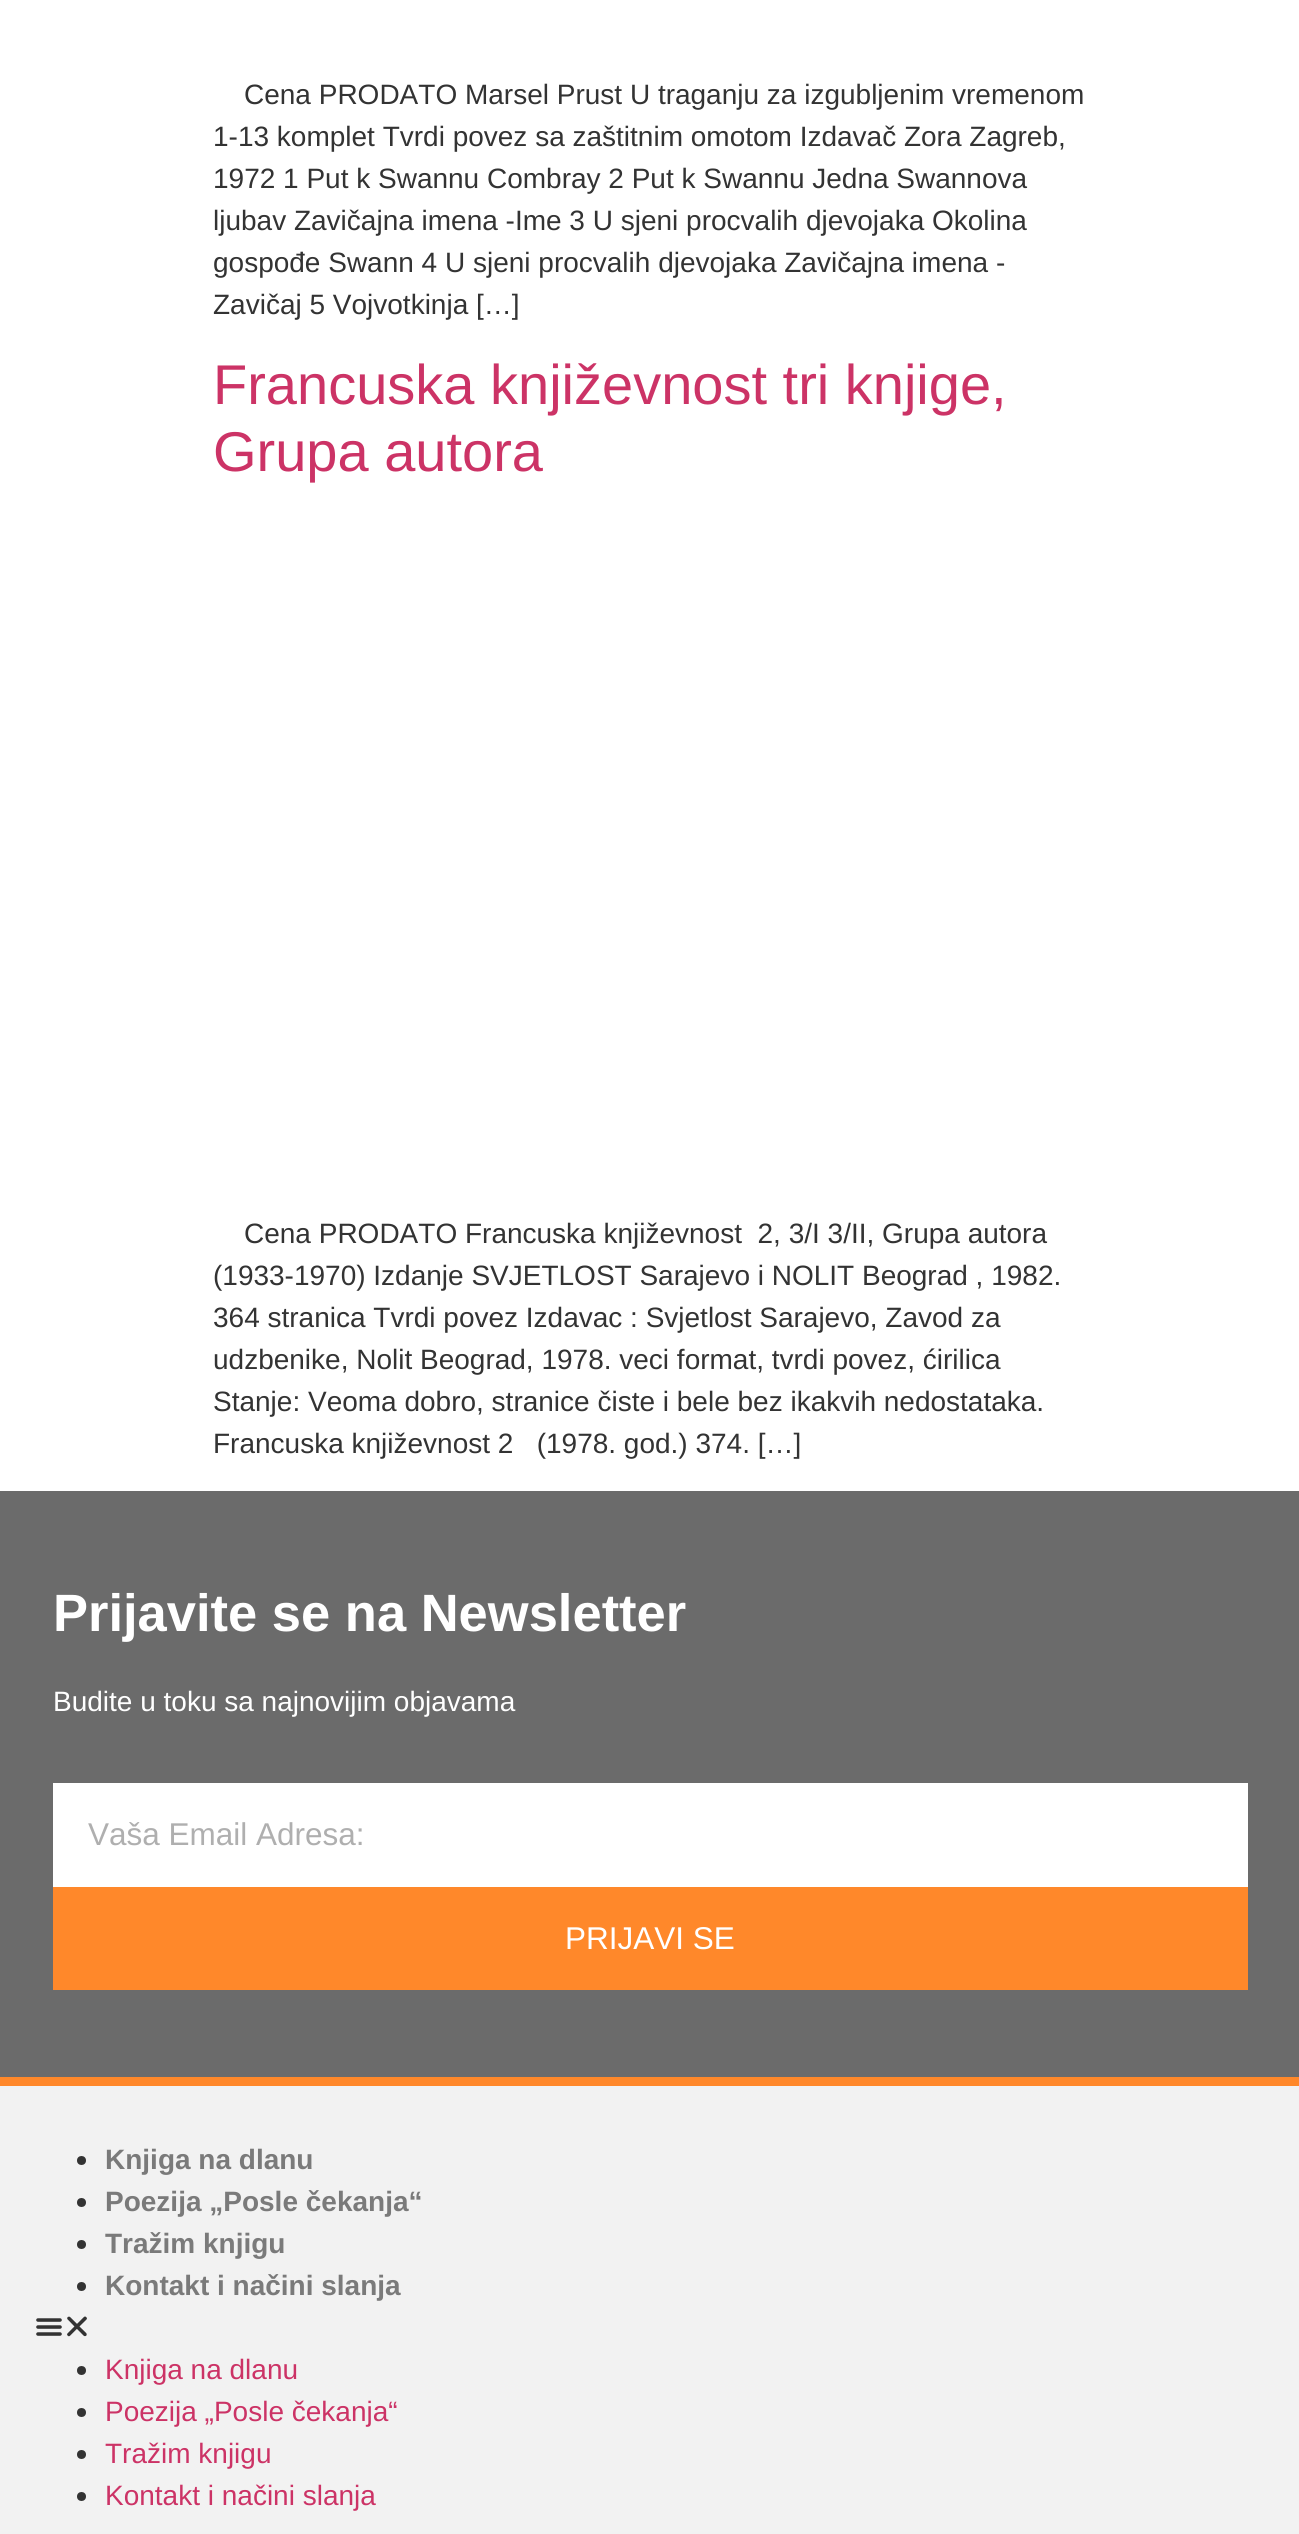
#include <cairo.h>
#include <math.h>
#include <stddef.h>


static void rgb(cairo_t *cr, int r, int g, int b)
{
	cairo_set_source_rgb(cr, r / 255.0, g / 255.0, b / 255.0);
}

static void face(cairo_t *cr, const char *family, double size, int italic, int bold)
{
	cairo_select_font_face(cr, family, italic ? CAIRO_FONT_SLANT_ITALIC : CAIRO_FONT_SLANT_NORMAL,
		bold ? CAIRO_FONT_WEIGHT_BOLD : CAIRO_FONT_WEIGHT_NORMAL);
	cairo_set_font_size(cr, size);
}

static void label(cairo_t *cr, double x, double y, const char *s)
{
	cairo_move_to(cr, x, y);
	cairo_show_text(cr, s);
}

static void rect(cairo_t *cr, double x, double y, double w, double h)
{
	cairo_rectangle(cr, x, y, w, h);
	cairo_fill(cr);
}

static void image(cairo_t *cr, const char *path, double x, double y, double w, double h)
{
	cairo_surface_t *image = cairo_image_surface_create_from_png(path);
	cairo_save(cr);
	cairo_set_source_surface(cr, image, x, y);
	cairo_rectangle(cr, x, y, w, h);
	cairo_fill(cr);
	cairo_restore(cr);
	cairo_surface_destroy(image);
}

static void draw(cairo_t *cr) {
	rgb(cr, 255, 255, 255);
	cairo_paint(cr);
	face(cr, "Liberation Sans", 28, 0, 0);
	rgb(cr, 51, 51, 51);
	label(cr, 244, 104, "Cena PRODATO Marsel Prust U traganju za izgubljenim vremenom");
	label(cr, 213, 146, "1-13 komplet Tvrdi povez sa zaštitnim omotom Izdavač Zora Zagreb,");
	label(cr, 213, 188, "1972 1 Put k Swannu Combray 2 Put k Swannu Jedna Swannova");
	label(cr, 213, 230, "ljubav Zavičajna imena -Ime 3 U sjeni procvalih djevojaka Okolina");
	label(cr, 213, 272, "gospođe Swann 4 U sjeni procvalih djevojaka Zavičajna imena -");
	label(cr, 213, 314, "Zavičaj 5 Vojvotkinja […]");
	face(cr, "Liberation Sans", 56, 0, 0);
	rgb(cr, 204, 51, 102);
	label(cr, 213, 404, "Francuska književnost tri knjige,");
	label(cr, 213, 471, "Grupa autora");
	face(cr, "Liberation Sans", 28, 0, 0);
	rgb(cr, 51, 51, 51);
	label(cr, 244, 1243, "Cena PRODATO Francuska književnost  2, 3/I 3/II, Grupa autora");
	label(cr, 213, 1285, "(1933-1970) Izdanje SVJETLOST Sarajevo i NOLIT Beograd , 1982.");
	label(cr, 213, 1327, "364 stranica Tvrdi povez Izdavac : Svjetlost Sarajevo, Zavod za");
	label(cr, 213, 1369, "udzbenike, Nolit Beograd, 1978. veci format, tvrdi povez, ćirilica");
	label(cr, 213, 1411, "Stanje: Veoma dobro, stranice čiste i bele bez ikakvih nedostataka.");
	label(cr, 213, 1453, "Francuska književnost 2   (1978. god.) 374. […]");
	rgb(cr, 107, 107, 107);
	rect(cr, 0, 1491, 1299, 586);
	face(cr, "Liberation Sans", 52.5, 0, 1);
	rgb(cr, 255, 255, 255);
	label(cr, 53, 1631, "Prijavite se na Newsletter");
	face(cr, "Liberation Sans", 28, 0, 0);
	label(cr, 53, 1711, "Budite u toku sa najnovijim objavama");
	rect(cr, 53, 1783, 1195, 104);
	face(cr, "Liberation Sans", 31.5, 0, 0);
	rgb(cr, 175, 175, 175);
	label(cr, 88, 1845, "Vaša Email Adresa:");
	rgb(cr, 255, 136, 42);
	rect(cr, 53, 1887, 1195, 103);
	rgb(cr, 255, 255, 255);
	label(cr, 565, 1949, "PRIJAVI SE");
	rgb(cr, 242, 242, 242);
	rect(cr, 0, 2086, 1299, 448);
	rgb(cr, 255, 136, 42);
	rect(cr, 0, 2077, 1299, 9);
	rgb(cr, 51, 51, 51);
	cairo_new_path(cr);
	cairo_arc(cr, 81.5, 2160.5, 4.5, 0, 2 * M_PI);
	cairo_fill(cr);
	face(cr, "Liberation Sans", 28, 0, 1);
	rgb(cr, 122, 122, 122);
	label(cr, 105, 2169, "Knjiga na dlanu");
	rgb(cr, 51, 51, 51);
	cairo_new_path(cr);
	cairo_arc(cr, 81.5, 2202.5, 4.5, 0, 2 * M_PI);
	cairo_fill(cr);
	rgb(cr, 122, 122, 122);
	label(cr, 105, 2211, "Poezija „Posle čekanja“");
	rgb(cr, 51, 51, 51);
	cairo_new_path(cr);
	cairo_arc(cr, 81.5, 2244.5, 4.5, 0, 2 * M_PI);
	cairo_fill(cr);
	rgb(cr, 122, 122, 122);
	label(cr, 105, 2253, "Tražim knjigu");
	rgb(cr, 51, 51, 51);
	cairo_new_path(cr);
	cairo_arc(cr, 81.5, 2286.5, 4.5, 0, 2 * M_PI);
	cairo_fill(cr);
	rgb(cr, 122, 122, 122);
	label(cr, 105, 2295, "Kontakt i načini slanja");
	image(cr, "image0.png", 36, 2318, 26, 18);
	image(cr, "image1.png", 67, 2316, 20, 21);
	rgb(cr, 51, 51, 51);
	cairo_arc(cr, 81.5, 2370.5, 4.5, 0, 2 * M_PI);
	cairo_fill(cr);
	face(cr, "Liberation Sans", 28, 0, 0);
	rgb(cr, 204, 51, 102);
	label(cr, 105, 2379, "Knjiga na dlanu");
	rgb(cr, 51, 51, 51);
	cairo_new_path(cr);
	cairo_arc(cr, 81.5, 2412.5, 4.5, 0, 2 * M_PI);
	cairo_fill(cr);
	rgb(cr, 204, 51, 102);
	label(cr, 105, 2421, "Poezija „Posle čekanja“");
	rgb(cr, 51, 51, 51);
	cairo_new_path(cr);
	cairo_arc(cr, 81.5, 2454.5, 4.5, 0, 2 * M_PI);
	cairo_fill(cr);
	rgb(cr, 204, 51, 102);
	label(cr, 105, 2463, "Tražim knjigu");
	rgb(cr, 51, 51, 51);
	cairo_new_path(cr);
	cairo_arc(cr, 81.5, 2496.5, 4.5, 0, 2 * M_PI);
	cairo_fill(cr);
	rgb(cr, 204, 51, 102);
	label(cr, 105, 2505, "Kontakt i načini slanja");
}

int main(void) {
	cairo_surface_t *surface = cairo_image_surface_create(CAIRO_FORMAT_RGB24, 1299, 2534);
	cairo_t *cr = cairo_create(surface);
	cairo_font_options_t *options = cairo_font_options_create();
	cairo_font_options_set_hint_metrics(options, CAIRO_HINT_METRICS_OFF);
	cairo_font_options_set_hint_style(options, CAIRO_HINT_STYLE_NONE);
	cairo_set_font_options(cr, options);
	cairo_set_miter_limit(cr, 4);
	draw(cr);
	cairo_surface_write_to_png(surface, "render.png");
	cairo_font_options_destroy(options);
	cairo_destroy(cr);
	cairo_surface_destroy(surface);
	return 0;
}
